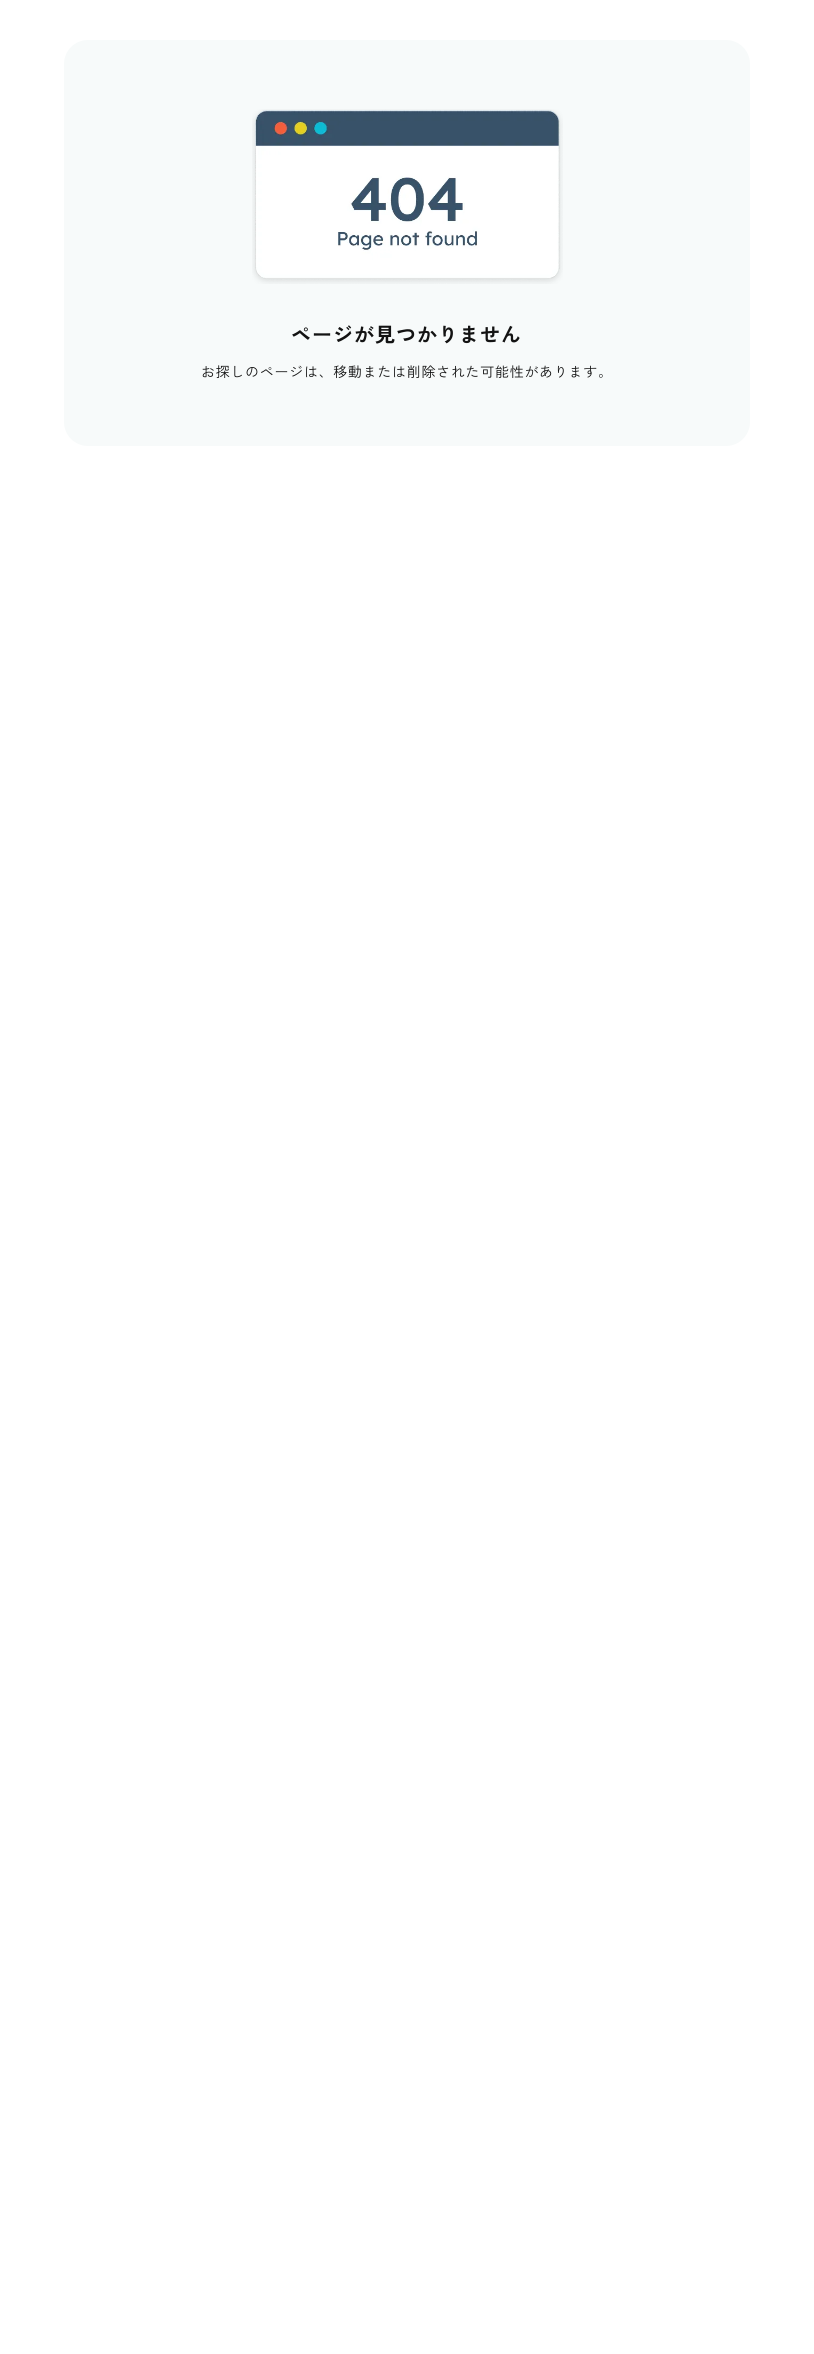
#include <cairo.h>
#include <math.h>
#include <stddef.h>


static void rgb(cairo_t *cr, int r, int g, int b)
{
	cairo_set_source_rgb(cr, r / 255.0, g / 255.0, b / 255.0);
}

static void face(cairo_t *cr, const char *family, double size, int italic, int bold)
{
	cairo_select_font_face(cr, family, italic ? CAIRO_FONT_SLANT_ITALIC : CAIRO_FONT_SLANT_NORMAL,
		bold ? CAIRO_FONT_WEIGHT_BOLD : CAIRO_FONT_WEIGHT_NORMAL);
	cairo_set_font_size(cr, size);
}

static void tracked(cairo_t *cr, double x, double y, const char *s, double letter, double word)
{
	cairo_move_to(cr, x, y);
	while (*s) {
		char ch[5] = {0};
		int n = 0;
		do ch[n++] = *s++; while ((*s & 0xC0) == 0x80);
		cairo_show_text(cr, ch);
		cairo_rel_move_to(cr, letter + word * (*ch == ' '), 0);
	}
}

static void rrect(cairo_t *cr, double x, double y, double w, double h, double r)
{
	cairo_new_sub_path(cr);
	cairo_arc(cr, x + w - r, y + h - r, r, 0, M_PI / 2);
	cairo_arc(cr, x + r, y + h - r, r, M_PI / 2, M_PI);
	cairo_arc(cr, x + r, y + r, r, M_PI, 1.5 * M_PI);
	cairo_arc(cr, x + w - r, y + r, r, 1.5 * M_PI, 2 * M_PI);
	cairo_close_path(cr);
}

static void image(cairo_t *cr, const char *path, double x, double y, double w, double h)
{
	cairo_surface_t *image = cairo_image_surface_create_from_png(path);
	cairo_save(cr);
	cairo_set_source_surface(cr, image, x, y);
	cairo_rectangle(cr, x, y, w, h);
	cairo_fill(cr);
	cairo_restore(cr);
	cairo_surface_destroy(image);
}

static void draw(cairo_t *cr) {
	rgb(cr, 255, 255, 255);
	cairo_paint(cr);
	rgb(cr, 247, 250, 250);
	rrect(cr, 64, 40, 686, 406, 24);
	cairo_fill(cr);
	image(cr, "image0.png", 252, 109, 311, 175);
	face(cr, "Zen Kaku Gothic New", 20, 0, 1);
	rgb(cr, 19, 19, 19);
	tracked(cr, 291, 342, "ページが見つかりません", 1, 0);
	face(cr, "Zen Kaku Gothic New", 14, 0, 0);
	tracked(cr, 201, 377, "お探しのページは、移動または削除された可能性があります。", 0.7, 0);
}

int main(void) {
	cairo_surface_t *surface = cairo_image_surface_create(CAIRO_FORMAT_RGB24, 814, 2354);
	cairo_t *cr = cairo_create(surface);
	cairo_font_options_t *options = cairo_font_options_create();
	cairo_font_options_set_hint_metrics(options, CAIRO_HINT_METRICS_OFF);
	cairo_font_options_set_hint_style(options, CAIRO_HINT_STYLE_NONE);
	cairo_set_font_options(cr, options);
	cairo_set_miter_limit(cr, 4);
	draw(cr);
	cairo_surface_write_to_png(surface, "render.png");
	cairo_font_options_destroy(options);
	cairo_destroy(cr);
	cairo_surface_destroy(surface);
	return 0;
}
